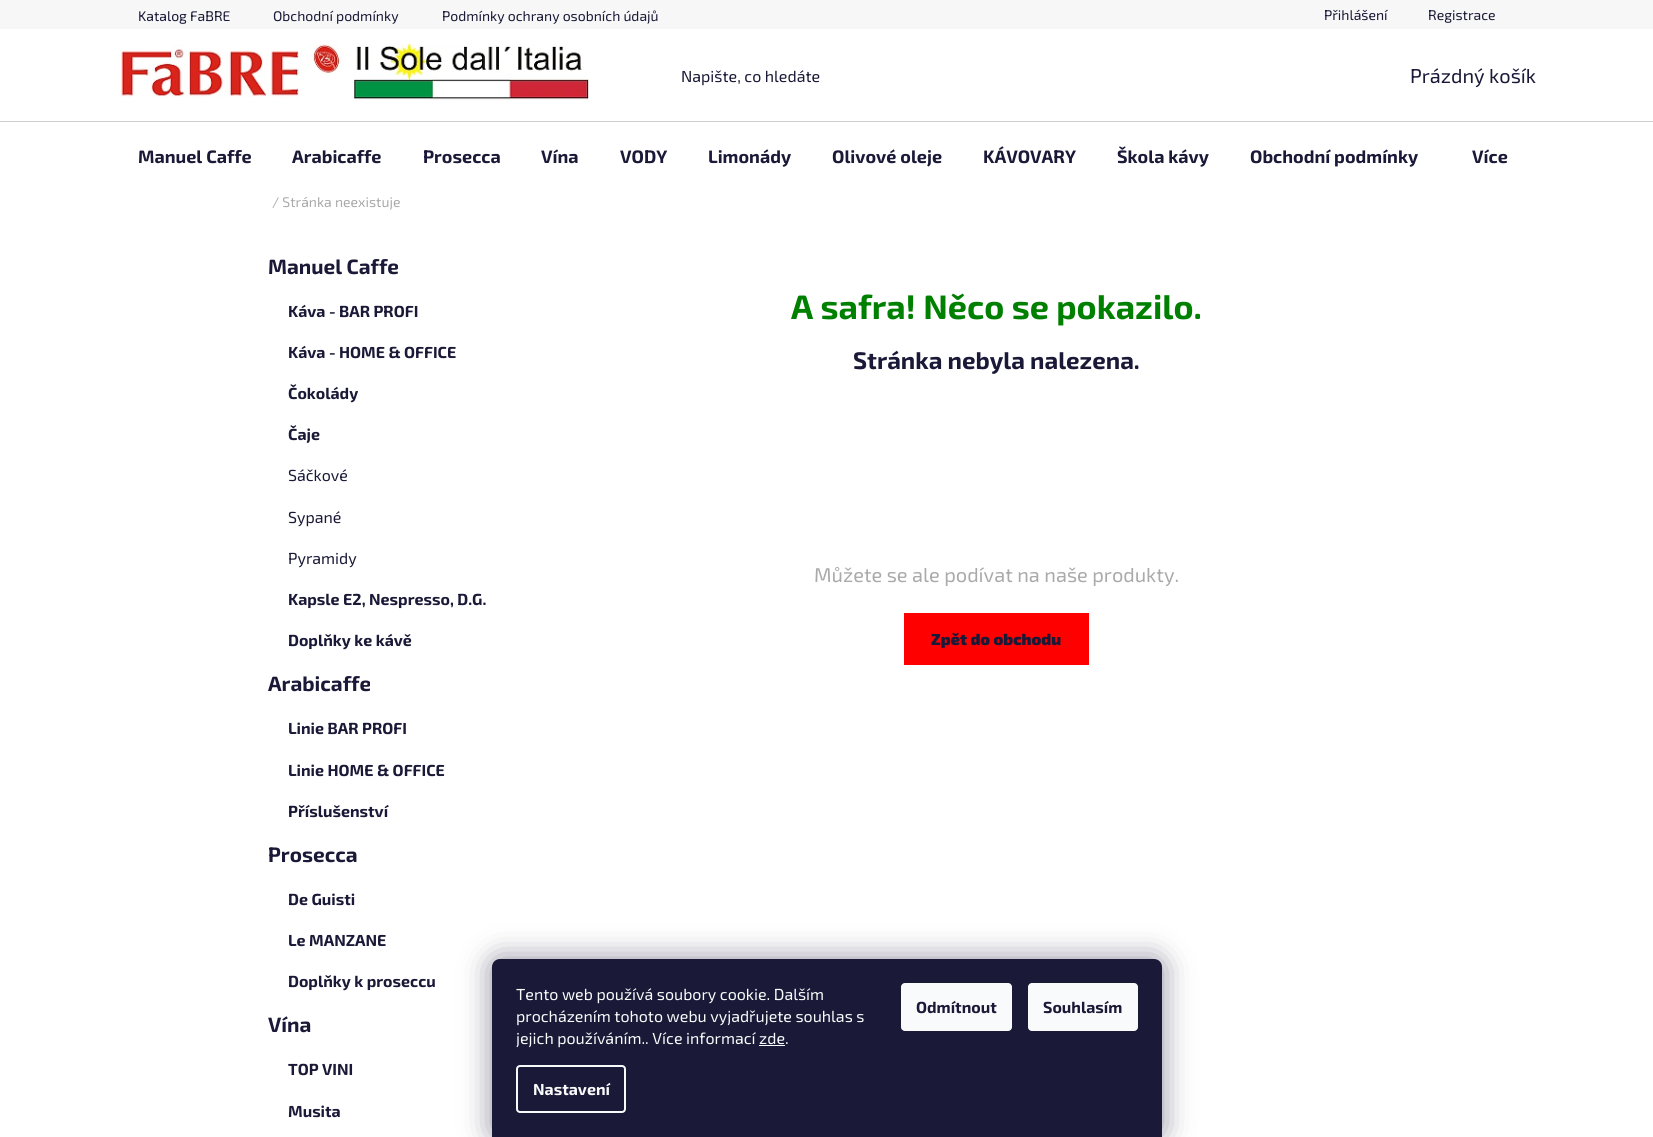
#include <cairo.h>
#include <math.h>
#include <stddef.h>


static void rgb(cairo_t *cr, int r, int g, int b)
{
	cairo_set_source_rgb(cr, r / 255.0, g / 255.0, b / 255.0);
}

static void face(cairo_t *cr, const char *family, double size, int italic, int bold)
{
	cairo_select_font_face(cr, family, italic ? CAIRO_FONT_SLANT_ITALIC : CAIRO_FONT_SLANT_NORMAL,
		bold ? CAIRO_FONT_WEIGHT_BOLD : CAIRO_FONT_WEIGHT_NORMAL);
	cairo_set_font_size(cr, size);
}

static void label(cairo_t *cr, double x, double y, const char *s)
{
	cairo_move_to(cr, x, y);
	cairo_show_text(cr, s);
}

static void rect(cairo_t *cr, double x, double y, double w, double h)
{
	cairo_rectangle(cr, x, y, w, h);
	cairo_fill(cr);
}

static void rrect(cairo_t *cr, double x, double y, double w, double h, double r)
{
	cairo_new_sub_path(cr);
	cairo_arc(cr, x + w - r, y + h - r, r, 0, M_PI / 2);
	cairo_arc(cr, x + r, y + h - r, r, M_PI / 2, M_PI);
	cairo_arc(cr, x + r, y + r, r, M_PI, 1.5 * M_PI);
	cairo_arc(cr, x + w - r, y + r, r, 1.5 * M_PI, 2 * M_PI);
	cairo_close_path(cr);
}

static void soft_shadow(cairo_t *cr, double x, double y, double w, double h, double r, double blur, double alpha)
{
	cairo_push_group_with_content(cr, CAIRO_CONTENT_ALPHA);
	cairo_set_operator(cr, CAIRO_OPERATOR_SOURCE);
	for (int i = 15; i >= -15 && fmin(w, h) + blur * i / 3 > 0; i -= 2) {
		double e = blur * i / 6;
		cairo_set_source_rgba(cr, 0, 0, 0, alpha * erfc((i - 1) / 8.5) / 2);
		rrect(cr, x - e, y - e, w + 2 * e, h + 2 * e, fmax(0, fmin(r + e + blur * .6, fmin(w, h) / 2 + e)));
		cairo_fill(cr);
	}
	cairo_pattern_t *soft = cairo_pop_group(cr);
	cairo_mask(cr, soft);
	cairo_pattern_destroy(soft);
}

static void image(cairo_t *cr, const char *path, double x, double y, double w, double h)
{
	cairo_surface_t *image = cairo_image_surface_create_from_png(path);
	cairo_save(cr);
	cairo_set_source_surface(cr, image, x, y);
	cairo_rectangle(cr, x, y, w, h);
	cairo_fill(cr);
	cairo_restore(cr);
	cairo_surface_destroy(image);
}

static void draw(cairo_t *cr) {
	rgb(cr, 255, 255, 255);
	cairo_paint(cr);
	rgb(cr, 247, 247, 247);
	rect(cr, 0, 0, 1653, 29);
	face(cr, "Exo 2", 14, 0, 0);
	rgb(cr, 26, 25, 55);
	label(cr, 138, 21, "Katalog FaBRE");
	label(cr, 273, 21, "Obchodní podmínky");
	label(cr, 442, 21, "Podmínky ochrany osobních údajů");
	label(cr, 1324, 20, "Přihlášení");
	label(cr, 1428, 20, "Registrace");
	image(cr, "image0.png", 118, 44, 471, 57);
	face(cr, "Exo 2", 16, 0, 0);
	label(cr, 681, 82, "Napište, co hledáte");
	face(cr, "Exo 2", 20, 0, 0);
	label(cr, 1410, 83, "Prázdný košík");
	rgb(cr, 207, 207, 207);
	rect(cr, 0, 121, 1653, 1);
	face(cr, "Exo 2", 18, 0, 1);
	rgb(cr, 26, 25, 55);
	label(cr, 138, 163, "Manuel Caffe");
	label(cr, 292, 163, "Arabicaffe");
	label(cr, 423, 163, "Prosecca");
	label(cr, 541, 163, "Vína");
	label(cr, 620, 163, "VODY");
	label(cr, 708, 163, "Limonády");
	label(cr, 832, 163, "Olivové oleje");
	label(cr, 983, 163, "KÁVOVARY");
	label(cr, 1117, 163, "Škola kávy");
	label(cr, 1250, 163, "Obchodní podmínky");
	label(cr, 1472, 163, "Více");
	face(cr, "Exo 2", 14, 0, 0);
	rgb(cr, 170, 170, 170);
	label(cr, 272, 207, "/ Stránka neexistuje");
	face(cr, "Exo 2", 20.75, 0, 1);
	rgb(cr, 26, 25, 55);
	label(cr, 268, 274, "Manuel Caffe");
	face(cr, "Exo 2", 16, 0, 1);
	label(cr, 288, 317, "Káva - BAR PROFI");
	label(cr, 288, 358, "Káva - HOME & OFFICE");
	label(cr, 288, 399, "Čokolády");
	label(cr, 288, 440, "Čaje");
	face(cr, "Exo 2", 16, 0, 0);
	label(cr, 288, 481, "Sáčkové");
	label(cr, 288, 523, "Sypané");
	label(cr, 288, 564, "Pyramidy");
	face(cr, "Exo 2", 16, 0, 1);
	label(cr, 288, 605, "Kapsle E2, Nespresso, D.G.");
	label(cr, 288, 646, "Doplňky ke kávě");
	face(cr, "Exo 2", 20.75, 0, 1);
	label(cr, 268, 691, "Arabicaffe");
	face(cr, "Exo 2", 16, 0, 1);
	label(cr, 288, 734, "Linie BAR PROFI");
	label(cr, 288, 776, "Linie HOME & OFFICE");
	label(cr, 288, 817, "Příslušenství");
	face(cr, "Exo 2", 20.75, 0, 1);
	label(cr, 268, 862, "Prosecca");
	face(cr, "Exo 2", 16, 0, 1);
	label(cr, 288, 905, "De Guisti");
	label(cr, 288, 946, "Le MANZANE");
	label(cr, 288, 987, "Doplňky k proseccu");
	face(cr, "Exo 2", 20.75, 0, 1);
	label(cr, 268, 1032, "Vína");
	face(cr, "Exo 2", 16, 0, 1);
	label(cr, 288, 1075, "TOP VINI");
	label(cr, 288, 1117, "Musita");
	face(cr, "Exo 2", 34, 0, 1);
	rgb(cr, 0, 128, 0);
	label(cr, 791, 319, "A safra! Něco se pokazilo.");
	face(cr, "Exo 2", 24, 0, 1);
	rgb(cr, 26, 25, 55);
	label(cr, 853, 369, "Stránka nebyla nalezena.");
	face(cr, "Exo 2", 20, 0, 0);
	rgb(cr, 170, 170, 170);
	label(cr, 814, 582, "Můžete se ale podívat na naše produkty.");
	rgb(cr, 255, 0, 0);
	rect(cr, 904, 613, 185, 52);
	face(cr, "Exo 2 Black", 16, 0, 0);
	rgb(cr, 26, 25, 55);
	label(cr, 931, 645, "Zpět do obchodu");
	rgb(cr, 27, 25, 57);
	soft_shadow(cr, 492, 959, 670, 178, 8, 15, 0.5);
	rgb(cr, 26, 25, 55);
	cairo_new_path(cr);
	cairo_move_to(cr, 500, 959);
	cairo_line_to(cr, 1154, 959);
	cairo_curve_to(cr, 1158.5, 959, 1162, 962.5, 1162, 967);
	cairo_line_to(cr, 1162, 1137);
	cairo_line_to(cr, 492, 1137);
	cairo_line_to(cr, 492, 967);
	cairo_curve_to(cr, 492, 962.5, 495.5, 959, 500, 959);
	cairo_close_path(cr);
	cairo_fill(cr);
	face(cr, "Exo 2", 16, 0, 0);
	rgb(cr, 248, 250, 251);
	label(cr, 516, 1000, "Tento web používá soubory cookie. Dalším");
	label(cr, 516, 1022, "procházením tohoto webu vyjadřujete souhlas s");
	label(cr, 516, 1044, "jejich používáním.. Více informací zde.");
	rect(cr, 759, 1045, 26, 1);
	rrect(cr, 517, 1066, 108, 46, 3);
	cairo_stroke(cr);
	face(cr, "Exo 2", 16, 0, 1);
	label(cr, 533, 1095, "Nastavení");
	rrect(cr, 901, 983, 111, 48, 4);
	cairo_fill(cr);
	rgb(cr, 26, 25, 55);
	label(cr, 916, 1013, "Odmítnout");
	rgb(cr, 248, 250, 251);
	rrect(cr, 1028, 983, 110, 48, 4);
	cairo_fill(cr);
	rgb(cr, 26, 25, 55);
	label(cr, 1043, 1013, "Souhlasím");
}

int main(void) {
	cairo_surface_t *surface = cairo_image_surface_create(CAIRO_FORMAT_RGB24, 1653, 1137);
	cairo_t *cr = cairo_create(surface);
	cairo_font_options_t *options = cairo_font_options_create();
	cairo_font_options_set_hint_metrics(options, CAIRO_HINT_METRICS_OFF);
	cairo_font_options_set_hint_style(options, CAIRO_HINT_STYLE_NONE);
	cairo_set_font_options(cr, options);
	cairo_set_miter_limit(cr, 4);
	draw(cr);
	cairo_surface_write_to_png(surface, "render.png");
	cairo_font_options_destroy(options);
	cairo_destroy(cr);
	cairo_surface_destroy(surface);
	return 0;
}
